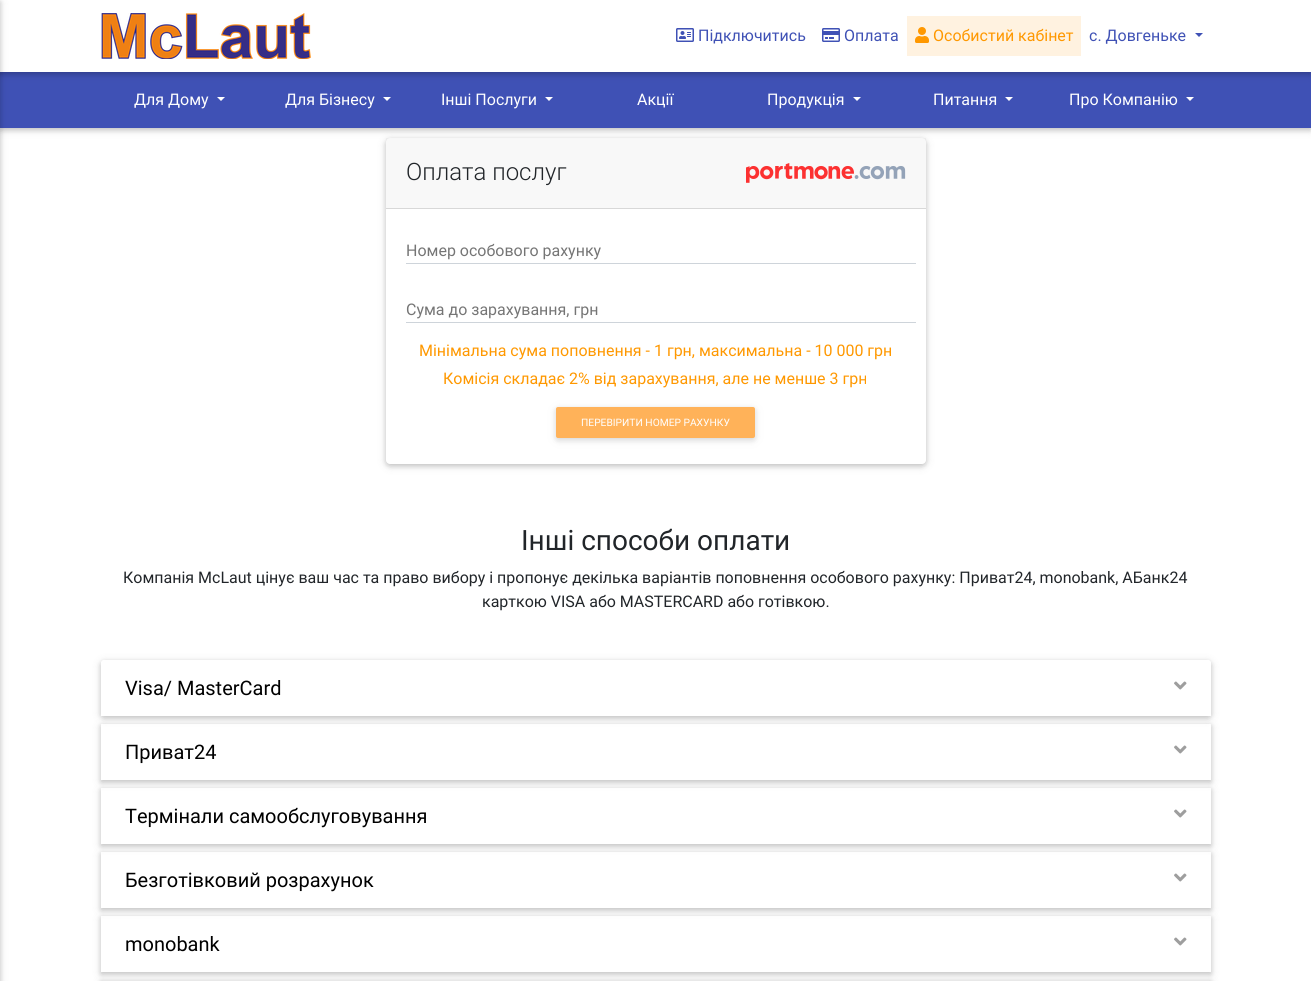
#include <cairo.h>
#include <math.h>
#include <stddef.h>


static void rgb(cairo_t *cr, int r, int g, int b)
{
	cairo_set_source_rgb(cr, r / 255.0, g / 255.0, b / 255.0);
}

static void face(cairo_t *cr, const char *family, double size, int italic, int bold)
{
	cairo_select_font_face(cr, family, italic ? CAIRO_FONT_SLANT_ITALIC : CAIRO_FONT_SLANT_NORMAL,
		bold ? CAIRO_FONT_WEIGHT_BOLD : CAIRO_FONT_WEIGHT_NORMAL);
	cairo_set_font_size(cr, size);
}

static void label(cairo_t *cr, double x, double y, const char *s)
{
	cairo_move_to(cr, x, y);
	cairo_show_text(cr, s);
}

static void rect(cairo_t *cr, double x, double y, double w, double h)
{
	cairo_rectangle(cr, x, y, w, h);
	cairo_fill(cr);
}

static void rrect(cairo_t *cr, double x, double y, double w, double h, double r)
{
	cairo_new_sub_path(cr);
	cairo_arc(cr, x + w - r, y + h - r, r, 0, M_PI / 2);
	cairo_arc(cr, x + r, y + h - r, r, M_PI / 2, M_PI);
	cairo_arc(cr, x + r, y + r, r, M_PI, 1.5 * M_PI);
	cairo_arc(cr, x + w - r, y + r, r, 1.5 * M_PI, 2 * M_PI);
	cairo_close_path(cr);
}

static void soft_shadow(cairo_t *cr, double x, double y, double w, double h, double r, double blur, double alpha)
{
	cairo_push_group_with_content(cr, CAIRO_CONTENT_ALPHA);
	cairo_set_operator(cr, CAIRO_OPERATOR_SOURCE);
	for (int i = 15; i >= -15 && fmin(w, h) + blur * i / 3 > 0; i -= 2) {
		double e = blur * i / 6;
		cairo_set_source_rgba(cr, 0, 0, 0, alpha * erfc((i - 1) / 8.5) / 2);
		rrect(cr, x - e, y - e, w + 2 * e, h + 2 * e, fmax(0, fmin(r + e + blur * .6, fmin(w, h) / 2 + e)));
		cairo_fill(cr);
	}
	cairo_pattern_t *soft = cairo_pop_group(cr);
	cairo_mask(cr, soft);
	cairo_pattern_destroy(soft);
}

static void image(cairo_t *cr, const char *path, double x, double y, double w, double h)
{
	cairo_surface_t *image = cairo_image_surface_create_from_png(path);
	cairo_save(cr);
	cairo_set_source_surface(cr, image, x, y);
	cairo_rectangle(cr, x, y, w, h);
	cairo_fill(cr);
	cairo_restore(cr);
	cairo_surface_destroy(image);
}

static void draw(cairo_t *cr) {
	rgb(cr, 255, 255, 255);
	cairo_paint(cr);
	rgb(cr, 0, 0, 0);
	soft_shadow(cr, 386, 140, 540, 326, 4, 5, 0.12);
	soft_shadow(cr, 386, 140, 540, 326, 4, 2.5, 0.16);
	rgb(cr, 255, 255, 255);
	rrect(cr, 386, 138, 540, 326, 4);
	cairo_fill(cr);
	cairo_set_source_rgba(cr, 0, 0, 0, 0.03);
	rect(cr, 386, 138, 540, 70);
	rgb(cr, 0, 0, 0);
	soft_shadow(cr, 0, 74, 1311, 56, 0, 5, 0.12);
	soft_shadow(cr, 0, 74, 1311, 56, 0, 2.5, 0.16);
	rgb(cr, 63, 81, 181);
	rect(cr, 0, 72, 1311, 56);
	rgb(cr, 0, 0, 0);
	soft_shadow(cr, 0, 2, 1311, 72, 0, 5, 0.12);
	soft_shadow(cr, 0, 2, 1311, 72, 0, 2.5, 0.16);
	rgb(cr, 255, 255, 255);
	rect(cr, 0, 0, 1311, 72);
	rgb(cr, 0, 0, 0);
	soft_shadow(cr, -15, 2, 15, 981, 0, 5, 0.12);
	soft_shadow(cr, -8, 2, 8, 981, 0, 2.5, 0.16);
	image(cr, "image0.png", 101, 13, 210, 46);
	image(cr, "image1.png", 676, 28, 18, 14);
	face(cr, "Roboto", 16, 0, 0);
	rgb(cr, 63, 81, 181);
	label(cr, 698, 41, "Підключитись");
	image(cr, "image2.png", 822, 28, 18, 14);
	label(cr, 844, 41, "Оплата");
	rgb(cr, 255, 242, 224);
	rect(cr, 907, 16, 174, 40);
	image(cr, "image3.png", 915, 27, 14, 16);
	rgb(cr, 255, 152, 0);
	label(cr, 933, 41, "Особистий кабінет");
	rgb(cr, 63, 81, 181);
	label(cr, 1089, 41, "с. Довгеньке");
	cairo_new_path(cr);
	cairo_move_to(cr, 1195, 33);
	cairo_line_to(cr, 1203, 33);
	cairo_line_to(cr, 1199, 37);
	cairo_close_path(cr);
	cairo_fill(cr);
	rgb(cr, 255, 255, 255);
	label(cr, 134, 105, "Для Дому");
	cairo_new_path(cr);
	cairo_move_to(cr, 217, 97);
	cairo_line_to(cr, 225, 97);
	cairo_line_to(cr, 221, 101);
	cairo_close_path(cr);
	cairo_fill(cr);
	label(cr, 285, 105, "Для Бізнесу");
	cairo_new_path(cr);
	cairo_move_to(cr, 383, 97);
	cairo_line_to(cr, 391, 97);
	cairo_line_to(cr, 387, 101);
	cairo_close_path(cr);
	cairo_fill(cr);
	label(cr, 441, 105, "Інші Послуги");
	cairo_new_path(cr);
	cairo_move_to(cr, 545, 97);
	cairo_line_to(cr, 553, 97);
	cairo_line_to(cr, 549, 101);
	cairo_close_path(cr);
	cairo_fill(cr);
	label(cr, 637, 105, "Акції");
	label(cr, 767, 105, "Продукція");
	cairo_new_path(cr);
	cairo_move_to(cr, 853, 97);
	cairo_line_to(cr, 861, 97);
	cairo_line_to(cr, 857, 101);
	cairo_close_path(cr);
	cairo_fill(cr);
	label(cr, 933, 105, "Питання");
	cairo_new_path(cr);
	cairo_move_to(cr, 1005, 97);
	cairo_line_to(cr, 1013, 97);
	cairo_line_to(cr, 1009, 101);
	cairo_close_path(cr);
	cairo_fill(cr);
	label(cr, 1069, 105, "Про Компанію");
	cairo_new_path(cr);
	cairo_move_to(cr, 1186, 97);
	cairo_line_to(cr, 1194, 97);
	cairo_line_to(cr, 1190, 101);
	cairo_close_path(cr);
	cairo_fill(cr);
	rgb(cr, 216, 216, 216);
	rect(cr, 386, 208, 540, 1);
	face(cr, "Roboto Light", 24, 0, 0);
	rgb(cr, 33, 37, 41);
	label(cr, 406, 180, "Оплата послуг");
	image(cr, "image4.png", 746, 163, 160, 20);
	face(cr, "Roboto", 16, 0, 0);
	rgb(cr, 117, 117, 117);
	label(cr, 406, 256, "Номер особового рахунку");
	rgb(cr, 206, 212, 218);
	rect(cr, 406, 263, 510, 1);
	rgb(cr, 117, 117, 117);
	label(cr, 406, 315, "Сума до зарахування, грн");
	rgb(cr, 206, 212, 218);
	rect(cr, 406, 322, 510, 1);
	rgb(cr, 255, 152, 0);
	label(cr, 419, 356, "Мінімальна сума поповнення - 1 грн, максимальна - 10 000 грн");
	label(cr, 443, 384, "Комісія складає 2% від зарахування, але не менше 3 грн");
	rgb(cr, 89, 89, 89);
	soft_shadow(cr, 556, 409, 199, 31, 2, 5, 0.12);
	soft_shadow(cr, 556, 409, 199, 31, 2, 2.5, 0.16);
	rgb(cr, 255, 178, 89);
	rrect(cr, 556, 407, 199, 31, 2);
	cairo_fill(cr);
	face(cr, "Roboto", 10.25, 0, 0);
	rgb(cr, 255, 255, 255);
	label(cr, 581, 426, "ПЕРЕВІРИТИ НОМЕР РАХУНКУ");
	face(cr, "Roboto", 28, 0, 0);
	rgb(cr, 33, 37, 41);
	label(cr, 521, 550, "Інші способи оплати");
	face(cr, "Roboto", 16, 0, 0);
	label(cr, 123, 583, "Компанія McLaut цінує ваш час та право вибору і пропонує декілька варіантів поповнення особового рахунку: Приват24, monobank, АБанк24");
	label(cr, 482, 607, "карткою VISA або MASTERCARD або готівкою.");
	cairo_save(cr);
	cairo_set_fill_rule(cr, CAIRO_FILL_RULE_EVEN_ODD);
	cairo_new_path(cr);
	cairo_move_to(cr, 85, 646);
	cairo_line_to(cr, 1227, 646);
	cairo_line_to(cr, 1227, 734);
	cairo_line_to(cr, 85, 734);
	cairo_close_path(cr);
	cairo_move_to(cr, 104, 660);
	cairo_line_to(cr, 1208, 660);
	cairo_curve_to(cr, 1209.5, 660, 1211, 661.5, 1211, 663);
	cairo_line_to(cr, 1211, 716);
	cairo_line_to(cr, 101, 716);
	cairo_line_to(cr, 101, 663);
	cairo_curve_to(cr, 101, 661.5, 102.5, 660, 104, 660);
	cairo_close_path(cr);
	cairo_clip(cr);
	rgb(cr, 0, 0, 0);
	soft_shadow(cr, 101, 662, 1110, 56, 3, 5, 0.12);
	cairo_restore(cr);
	cairo_save(cr);
	cairo_set_fill_rule(cr, CAIRO_FILL_RULE_EVEN_ODD);
	cairo_new_path(cr);
	cairo_move_to(cr, 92, 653);
	cairo_line_to(cr, 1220, 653);
	cairo_line_to(cr, 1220, 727);
	cairo_line_to(cr, 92, 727);
	cairo_close_path(cr);
	cairo_move_to(cr, 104, 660);
	cairo_line_to(cr, 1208, 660);
	cairo_curve_to(cr, 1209.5, 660, 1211, 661.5, 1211, 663);
	cairo_line_to(cr, 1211, 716);
	cairo_line_to(cr, 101, 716);
	cairo_line_to(cr, 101, 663);
	cairo_curve_to(cr, 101, 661.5, 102.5, 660, 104, 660);
	cairo_close_path(cr);
	cairo_clip(cr);
	rgb(cr, 0, 0, 0);
	soft_shadow(cr, 101, 662, 1110, 56, 3, 2.5, 0.16);
	cairo_restore(cr);
	face(cr, "Roboto", 20, 0, 0);
	rgb(cr, 0, 0, 0);
	label(cr, 125, 695, "Visa/ MasterCard");
	image(cr, "image5.png", 1174, 681, 13, 9);
	cairo_save(cr);
	cairo_set_fill_rule(cr, CAIRO_FILL_RULE_EVEN_ODD);
	cairo_new_path(cr);
	cairo_move_to(cr, 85, 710);
	cairo_line_to(cr, 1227, 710);
	cairo_line_to(cr, 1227, 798);
	cairo_line_to(cr, 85, 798);
	cairo_close_path(cr);
	cairo_move_to(cr, 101, 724);
	cairo_line_to(cr, 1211, 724);
	cairo_line_to(cr, 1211, 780);
	cairo_line_to(cr, 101, 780);
	cairo_close_path(cr);
	cairo_clip(cr);
	rgb(cr, 0, 0, 0);
	soft_shadow(cr, 101, 726, 1110, 56, 0, 5, 0.12);
	cairo_restore(cr);
	cairo_save(cr);
	cairo_set_fill_rule(cr, CAIRO_FILL_RULE_EVEN_ODD);
	cairo_new_path(cr);
	cairo_move_to(cr, 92, 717);
	cairo_line_to(cr, 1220, 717);
	cairo_line_to(cr, 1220, 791);
	cairo_line_to(cr, 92, 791);
	cairo_close_path(cr);
	cairo_move_to(cr, 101, 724);
	cairo_line_to(cr, 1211, 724);
	cairo_line_to(cr, 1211, 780);
	cairo_line_to(cr, 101, 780);
	cairo_close_path(cr);
	cairo_clip(cr);
	rgb(cr, 0, 0, 0);
	soft_shadow(cr, 101, 726, 1110, 56, 0, 2.5, 0.16);
	cairo_restore(cr);
	label(cr, 125, 759, "Приват24");
	image(cr, "image5.png", 1174, 745, 13, 9);
	cairo_save(cr);
	cairo_set_fill_rule(cr, CAIRO_FILL_RULE_EVEN_ODD);
	cairo_new_path(cr);
	cairo_move_to(cr, 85, 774);
	cairo_line_to(cr, 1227, 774);
	cairo_line_to(cr, 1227, 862);
	cairo_line_to(cr, 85, 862);
	cairo_close_path(cr);
	cairo_move_to(cr, 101, 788);
	cairo_line_to(cr, 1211, 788);
	cairo_line_to(cr, 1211, 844);
	cairo_line_to(cr, 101, 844);
	cairo_close_path(cr);
	cairo_clip(cr);
	rgb(cr, 0, 0, 0);
	soft_shadow(cr, 101, 790, 1110, 56, 0, 5, 0.12);
	cairo_restore(cr);
	cairo_save(cr);
	cairo_set_fill_rule(cr, CAIRO_FILL_RULE_EVEN_ODD);
	cairo_new_path(cr);
	cairo_move_to(cr, 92, 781);
	cairo_line_to(cr, 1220, 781);
	cairo_line_to(cr, 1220, 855);
	cairo_line_to(cr, 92, 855);
	cairo_close_path(cr);
	cairo_move_to(cr, 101, 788);
	cairo_line_to(cr, 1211, 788);
	cairo_line_to(cr, 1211, 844);
	cairo_line_to(cr, 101, 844);
	cairo_close_path(cr);
	cairo_clip(cr);
	rgb(cr, 0, 0, 0);
	soft_shadow(cr, 101, 790, 1110, 56, 0, 2.5, 0.16);
	cairo_restore(cr);
	label(cr, 125, 823, "Термінали самообслуговування");
	image(cr, "image5.png", 1174, 809, 13, 9);
	cairo_save(cr);
	cairo_set_fill_rule(cr, CAIRO_FILL_RULE_EVEN_ODD);
	cairo_new_path(cr);
	cairo_move_to(cr, 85, 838);
	cairo_line_to(cr, 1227, 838);
	cairo_line_to(cr, 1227, 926);
	cairo_line_to(cr, 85, 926);
	cairo_close_path(cr);
	cairo_move_to(cr, 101, 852);
	cairo_line_to(cr, 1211, 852);
	cairo_line_to(cr, 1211, 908);
	cairo_line_to(cr, 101, 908);
	cairo_close_path(cr);
	cairo_clip(cr);
	rgb(cr, 0, 0, 0);
	soft_shadow(cr, 101, 854, 1110, 56, 0, 5, 0.12);
	cairo_restore(cr);
	cairo_save(cr);
	cairo_set_fill_rule(cr, CAIRO_FILL_RULE_EVEN_ODD);
	cairo_new_path(cr);
	cairo_move_to(cr, 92, 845);
	cairo_line_to(cr, 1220, 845);
	cairo_line_to(cr, 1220, 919);
	cairo_line_to(cr, 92, 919);
	cairo_close_path(cr);
	cairo_move_to(cr, 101, 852);
	cairo_line_to(cr, 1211, 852);
	cairo_line_to(cr, 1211, 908);
	cairo_line_to(cr, 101, 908);
	cairo_close_path(cr);
	cairo_clip(cr);
	rgb(cr, 0, 0, 0);
	soft_shadow(cr, 101, 854, 1110, 56, 0, 2.5, 0.16);
	cairo_restore(cr);
	label(cr, 125, 887, "Безготівковий розрахунок");
	image(cr, "image5.png", 1174, 873, 13, 9);
	cairo_save(cr);
	cairo_set_fill_rule(cr, CAIRO_FILL_RULE_EVEN_ODD);
	cairo_new_path(cr);
	cairo_move_to(cr, 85, 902);
	cairo_line_to(cr, 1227, 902);
	cairo_line_to(cr, 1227, 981);
	cairo_line_to(cr, 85, 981);
	cairo_close_path(cr);
	cairo_move_to(cr, 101, 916);
	cairo_line_to(cr, 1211, 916);
	cairo_line_to(cr, 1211, 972);
	cairo_line_to(cr, 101, 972);
	cairo_close_path(cr);
	cairo_clip(cr);
	rgb(cr, 0, 0, 0);
	soft_shadow(cr, 101, 918, 1110, 56, 0, 5, 0.12);
	cairo_restore(cr);
	cairo_save(cr);
	cairo_set_fill_rule(cr, CAIRO_FILL_RULE_EVEN_ODD);
	cairo_new_path(cr);
	cairo_move_to(cr, 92, 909);
	cairo_line_to(cr, 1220, 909);
	cairo_line_to(cr, 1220, 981);
	cairo_line_to(cr, 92, 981);
	cairo_close_path(cr);
	cairo_move_to(cr, 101, 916);
	cairo_line_to(cr, 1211, 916);
	cairo_line_to(cr, 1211, 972);
	cairo_line_to(cr, 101, 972);
	cairo_close_path(cr);
	cairo_clip(cr);
	rgb(cr, 0, 0, 0);
	soft_shadow(cr, 101, 918, 1110, 56, 0, 2.5, 0.16);
	cairo_restore(cr);
	label(cr, 125, 951, "monobank");
	image(cr, "image5.png", 1174, 937, 13, 9);
	rgb(cr, 0, 0, 0);
	soft_shadow(cr, 101, 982, 1110, 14, 0, 5, 0.12);
	soft_shadow(cr, 101, 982, 1110, 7, 0, 2.5, 0.16);
}

int main(void) {
	cairo_surface_t *surface = cairo_image_surface_create(CAIRO_FORMAT_RGB24, 1311, 981);
	cairo_t *cr = cairo_create(surface);
	cairo_font_options_t *options = cairo_font_options_create();
	cairo_font_options_set_hint_metrics(options, CAIRO_HINT_METRICS_OFF);
	cairo_font_options_set_hint_style(options, CAIRO_HINT_STYLE_NONE);
	cairo_set_font_options(cr, options);
	cairo_set_miter_limit(cr, 4);
	draw(cr);
	cairo_surface_write_to_png(surface, "render.png");
	cairo_font_options_destroy(options);
	cairo_destroy(cr);
	cairo_surface_destroy(surface);
	return 0;
}
